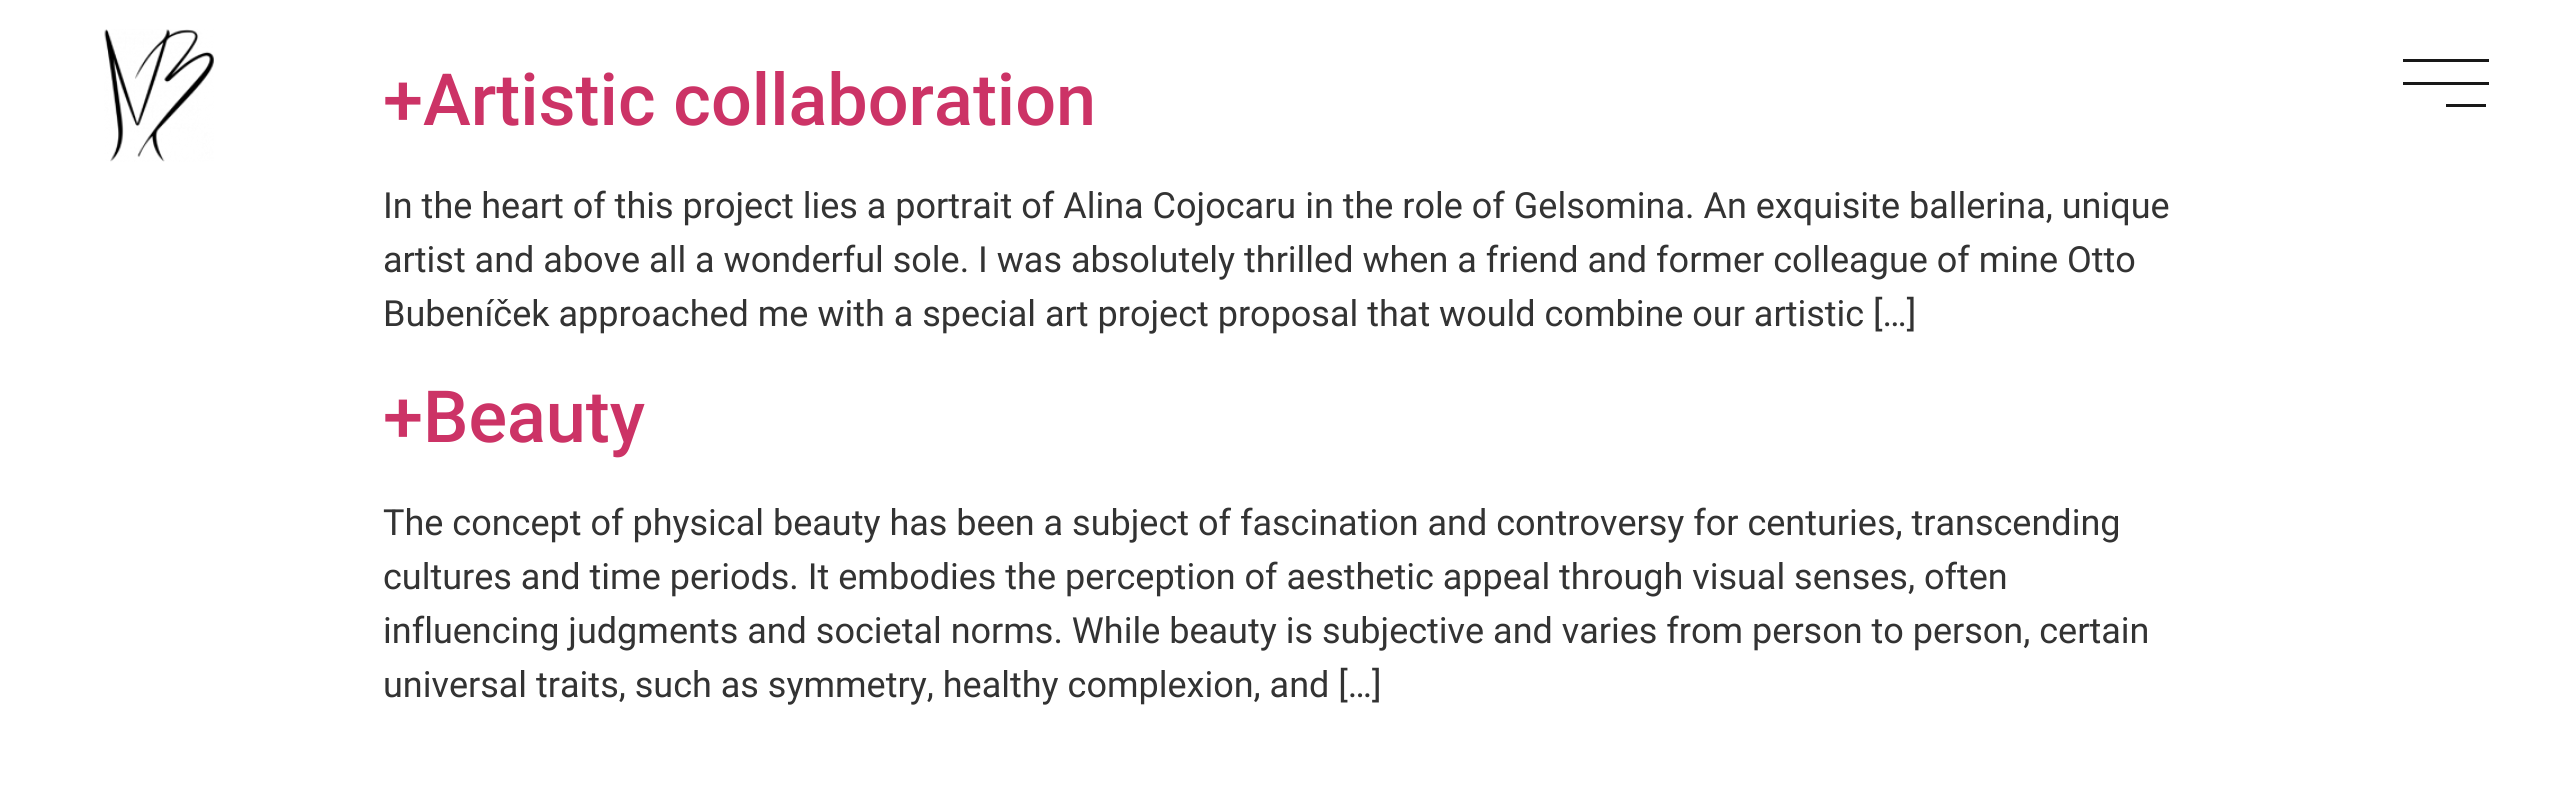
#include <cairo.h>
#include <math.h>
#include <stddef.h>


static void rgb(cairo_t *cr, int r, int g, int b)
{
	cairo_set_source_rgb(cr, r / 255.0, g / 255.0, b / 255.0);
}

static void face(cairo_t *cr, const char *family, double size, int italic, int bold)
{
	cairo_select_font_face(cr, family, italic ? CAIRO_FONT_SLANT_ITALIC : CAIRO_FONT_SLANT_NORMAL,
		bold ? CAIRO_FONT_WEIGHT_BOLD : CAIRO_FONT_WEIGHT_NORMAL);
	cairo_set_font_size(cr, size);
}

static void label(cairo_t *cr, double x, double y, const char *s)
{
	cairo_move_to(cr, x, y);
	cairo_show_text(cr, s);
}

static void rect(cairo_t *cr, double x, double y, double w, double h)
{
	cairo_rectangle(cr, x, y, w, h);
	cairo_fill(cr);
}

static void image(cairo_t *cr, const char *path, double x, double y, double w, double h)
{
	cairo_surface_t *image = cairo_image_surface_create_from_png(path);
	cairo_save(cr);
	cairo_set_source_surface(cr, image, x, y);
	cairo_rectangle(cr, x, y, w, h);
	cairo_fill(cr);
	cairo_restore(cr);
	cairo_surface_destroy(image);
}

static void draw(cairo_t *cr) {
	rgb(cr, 255, 255, 255);
	cairo_paint(cr);
	image(cr, "image0.png", 104, 29, 110, 133);
	rgb(cr, 24, 24, 24);
	rect(cr, 2403, 59, 86, 3);
	rect(cr, 2403, 82, 86, 3);
	rect(cr, 2446, 104, 40, 3);
	face(cr, "Roboto Medium", 72, 0, 0);
	rgb(cr, 204, 51, 102);
	label(cr, 383, 125, "+Artistic collaboration");
	face(cr, "Roboto", 36, 0, 0);
	rgb(cr, 51, 51, 51);
	label(cr, 383, 218, "In the heart of this project lies a portrait of Alina Cojocaru in the role of Gelsomina. An exquisite ballerina, unique");
	label(cr, 383, 272, "artist and above all a wonderful sole. I was absolutely thrilled when a friend and former colleague of mine Otto");
	label(cr, 383, 326, "Bubeníček approached me with a special art project proposal that would combine our artistic […]");
	face(cr, "Roboto Medium", 72, 0, 0);
	rgb(cr, 204, 51, 102);
	label(cr, 383, 442, "+Beauty");
	face(cr, "Roboto", 36, 0, 0);
	rgb(cr, 51, 51, 51);
	label(cr, 383, 535, "The concept of physical beauty has been a subject of fascination and controversy for centuries, transcending");
	label(cr, 383, 589, "cultures and time periods. It embodies the perception of aesthetic appeal through visual senses, often");
	label(cr, 383, 643, "influencing judgments and societal norms. While beauty is subjective and varies from person to person, certain");
	label(cr, 383, 697, "universal traits, such as symmetry, healthy complexion, and […]");
}

int main(void) {
	cairo_surface_t *surface = cairo_image_surface_create(CAIRO_FORMAT_RGB24, 2563, 789);
	cairo_t *cr = cairo_create(surface);
	cairo_font_options_t *options = cairo_font_options_create();
	cairo_font_options_set_hint_metrics(options, CAIRO_HINT_METRICS_OFF);
	cairo_font_options_set_hint_style(options, CAIRO_HINT_STYLE_NONE);
	cairo_set_font_options(cr, options);
	cairo_set_miter_limit(cr, 4);
	draw(cr);
	cairo_surface_write_to_png(surface, "render.png");
	cairo_font_options_destroy(options);
	cairo_destroy(cr);
	cairo_surface_destroy(surface);
	return 0;
}
